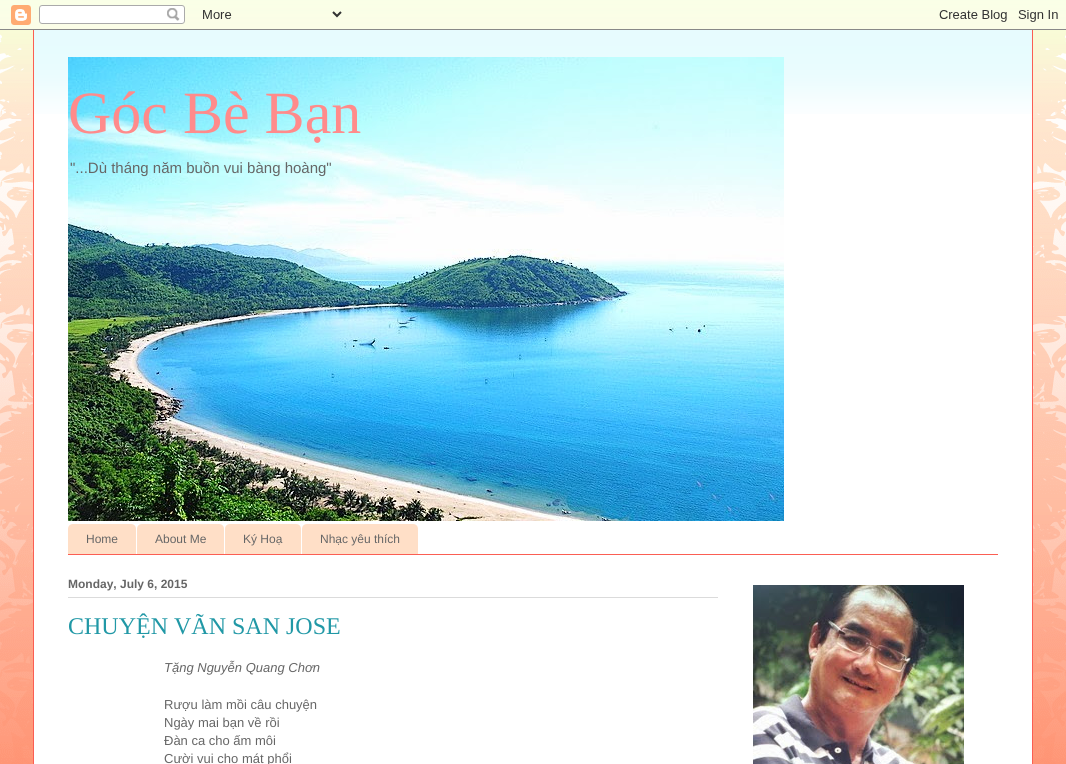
#include <cairo.h>
#include <math.h>
#include <stddef.h>


static void rgb(cairo_t *cr, int r, int g, int b)
{
	cairo_set_source_rgb(cr, r / 255.0, g / 255.0, b / 255.0);
}

static void face(cairo_t *cr, const char *family, double size, int italic, int bold)
{
	cairo_select_font_face(cr, family, italic ? CAIRO_FONT_SLANT_ITALIC : CAIRO_FONT_SLANT_NORMAL,
		bold ? CAIRO_FONT_WEIGHT_BOLD : CAIRO_FONT_WEIGHT_NORMAL);
	cairo_set_font_size(cr, size);
}

static void label(cairo_t *cr, double x, double y, const char *s)
{
	cairo_move_to(cr, x, y);
	cairo_show_text(cr, s);
}

static void rect(cairo_t *cr, double x, double y, double w, double h)
{
	cairo_rectangle(cr, x, y, w, h);
	cairo_fill(cr);
}

static void image(cairo_t *cr, const char *path, double x, double y, double w, double h)
{
	cairo_surface_t *image = cairo_image_surface_create_from_png(path);
	cairo_save(cr);
	cairo_set_source_surface(cr, image, x, y);
	cairo_rectangle(cr, x, y, w, h);
	cairo_fill(cr);
	cairo_restore(cr);
	cairo_surface_destroy(image);
}

static void draw(cairo_t *cr) {
	rgb(cr, 255, 255, 255);
	cairo_paint(cr);
	image(cr, "image0.png", 0, 0, 1066, 764);
	image(cr, "image1.png", 0, 0, 1066, 30);
	image(cr, "image2.png", 0, 34, 33, 730);
	rgb(cr, 255, 255, 255);
	rect(cr, 34, 30, 998, 734);
	image(cr, "image3.png", 34, 30, 998, 84);
	rgb(cr, 251, 94, 83);
	rect(cr, 1032, 30, 1, 734);
	rect(cr, 33, 30, 1, 734);
	image(cr, "image4.png", 1033, 35, 33, 729);
	image(cr, "image5.png", 68, 57, 716, 464);
	face(cr, "Liberation Serif", 60, 0, 0);
	rgb(cr, 255, 139, 139);
	label(cr, 68, 133, "Góc Bè Bạn");
	face(cr, "Liberation Sans", 15, 0, 0);
	rgb(cr, 102, 102, 102);
	label(cr, 70, 173, "\"...Dù tháng năm buồn vui bàng hoàng\"");
	rgb(cr, 251, 94, 83);
	rect(cr, 68, 554, 930, 1);
	rgb(cr, 255, 223, 199);
	cairo_new_path(cr);
	cairo_move_to(cr, 73, 524);
	cairo_line_to(cr, 131, 524);
	cairo_curve_to(cr, 134, 524, 136, 526, 136, 529);
	cairo_line_to(cr, 136, 554);
	cairo_line_to(cr, 68, 554);
	cairo_line_to(cr, 68, 529);
	cairo_curve_to(cr, 68, 526, 70, 524, 73, 524);
	cairo_close_path(cr);
	cairo_fill(cr);
	face(cr, "Liberation Sans", 12, 0, 0);
	rgb(cr, 102, 102, 102);
	label(cr, 86, 543, "Home");
	rgb(cr, 255, 223, 199);
	cairo_new_path(cr);
	cairo_move_to(cr, 142, 524);
	cairo_line_to(cr, 219, 524);
	cairo_curve_to(cr, 222, 524, 224, 526, 224, 529);
	cairo_line_to(cr, 224, 554);
	cairo_line_to(cr, 137, 554);
	cairo_line_to(cr, 137, 529);
	cairo_curve_to(cr, 137, 526, 139, 524, 142, 524);
	cairo_close_path(cr);
	cairo_fill(cr);
	rgb(cr, 102, 102, 102);
	label(cr, 155, 543, "About Me");
	rgb(cr, 255, 223, 199);
	cairo_new_path(cr);
	cairo_move_to(cr, 230, 524);
	cairo_line_to(cr, 296, 524);
	cairo_curve_to(cr, 299, 524, 301, 526, 301, 529);
	cairo_line_to(cr, 301, 554);
	cairo_line_to(cr, 225, 554);
	cairo_line_to(cr, 225, 529);
	cairo_curve_to(cr, 225, 526, 227, 524, 230, 524);
	cairo_close_path(cr);
	cairo_fill(cr);
	rgb(cr, 102, 102, 102);
	label(cr, 243, 543, "Ký Hoạ");
	rgb(cr, 255, 223, 199);
	cairo_new_path(cr);
	cairo_move_to(cr, 307, 524);
	cairo_line_to(cr, 413, 524);
	cairo_curve_to(cr, 416, 524, 418, 526, 418, 529);
	cairo_line_to(cr, 418, 554);
	cairo_line_to(cr, 302, 554);
	cairo_line_to(cr, 302, 529);
	cairo_curve_to(cr, 302, 526, 304, 524, 307, 524);
	cairo_close_path(cr);
	cairo_fill(cr);
	rgb(cr, 102, 102, 102);
	label(cr, 320, 543, "Nhạc yêu thích");
	rgb(cr, 219, 219, 219);
	rect(cr, 68, 597, 650, 1);
	face(cr, "Liberation Sans", 12, 0, 1);
	rgb(cr, 102, 102, 102);
	label(cr, 68, 588, "Monday, July 6, 2015");
	face(cr, "Liberation Serif", 24, 0, 0);
	rgb(cr, 33, 152, 166);
	label(cr, 68, 634, "CHUYỆN VÃN SAN JOSE");
	face(cr, "Liberation Sans", 13, 1, 0);
	rgb(cr, 102, 102, 102);
	label(cr, 164, 672, "Tặng Nguyễn Quang Chơn");
	face(cr, "Liberation Sans", 13, 0, 0);
	label(cr, 164, 709, "Rượu làm mồi câu chuyện");
	label(cr, 164, 727, "Ngày mai bạn về rồi");
	label(cr, 164, 745, "Đàn ca cho ấm môi");
	label(cr, 164, 763, "Cười vui cho mát phổi");
	image(cr, "image6.png", 753, 585, 211, 179);
}

int main(void) {
	cairo_surface_t *surface = cairo_image_surface_create(CAIRO_FORMAT_RGB24, 1066, 764);
	cairo_t *cr = cairo_create(surface);
	cairo_font_options_t *options = cairo_font_options_create();
	cairo_font_options_set_hint_metrics(options, CAIRO_HINT_METRICS_OFF);
	cairo_font_options_set_hint_style(options, CAIRO_HINT_STYLE_NONE);
	cairo_set_font_options(cr, options);
	cairo_set_miter_limit(cr, 4);
	draw(cr);
	cairo_surface_write_to_png(surface, "render.png");
	cairo_font_options_destroy(options);
	cairo_destroy(cr);
	cairo_surface_destroy(surface);
	return 0;
}
